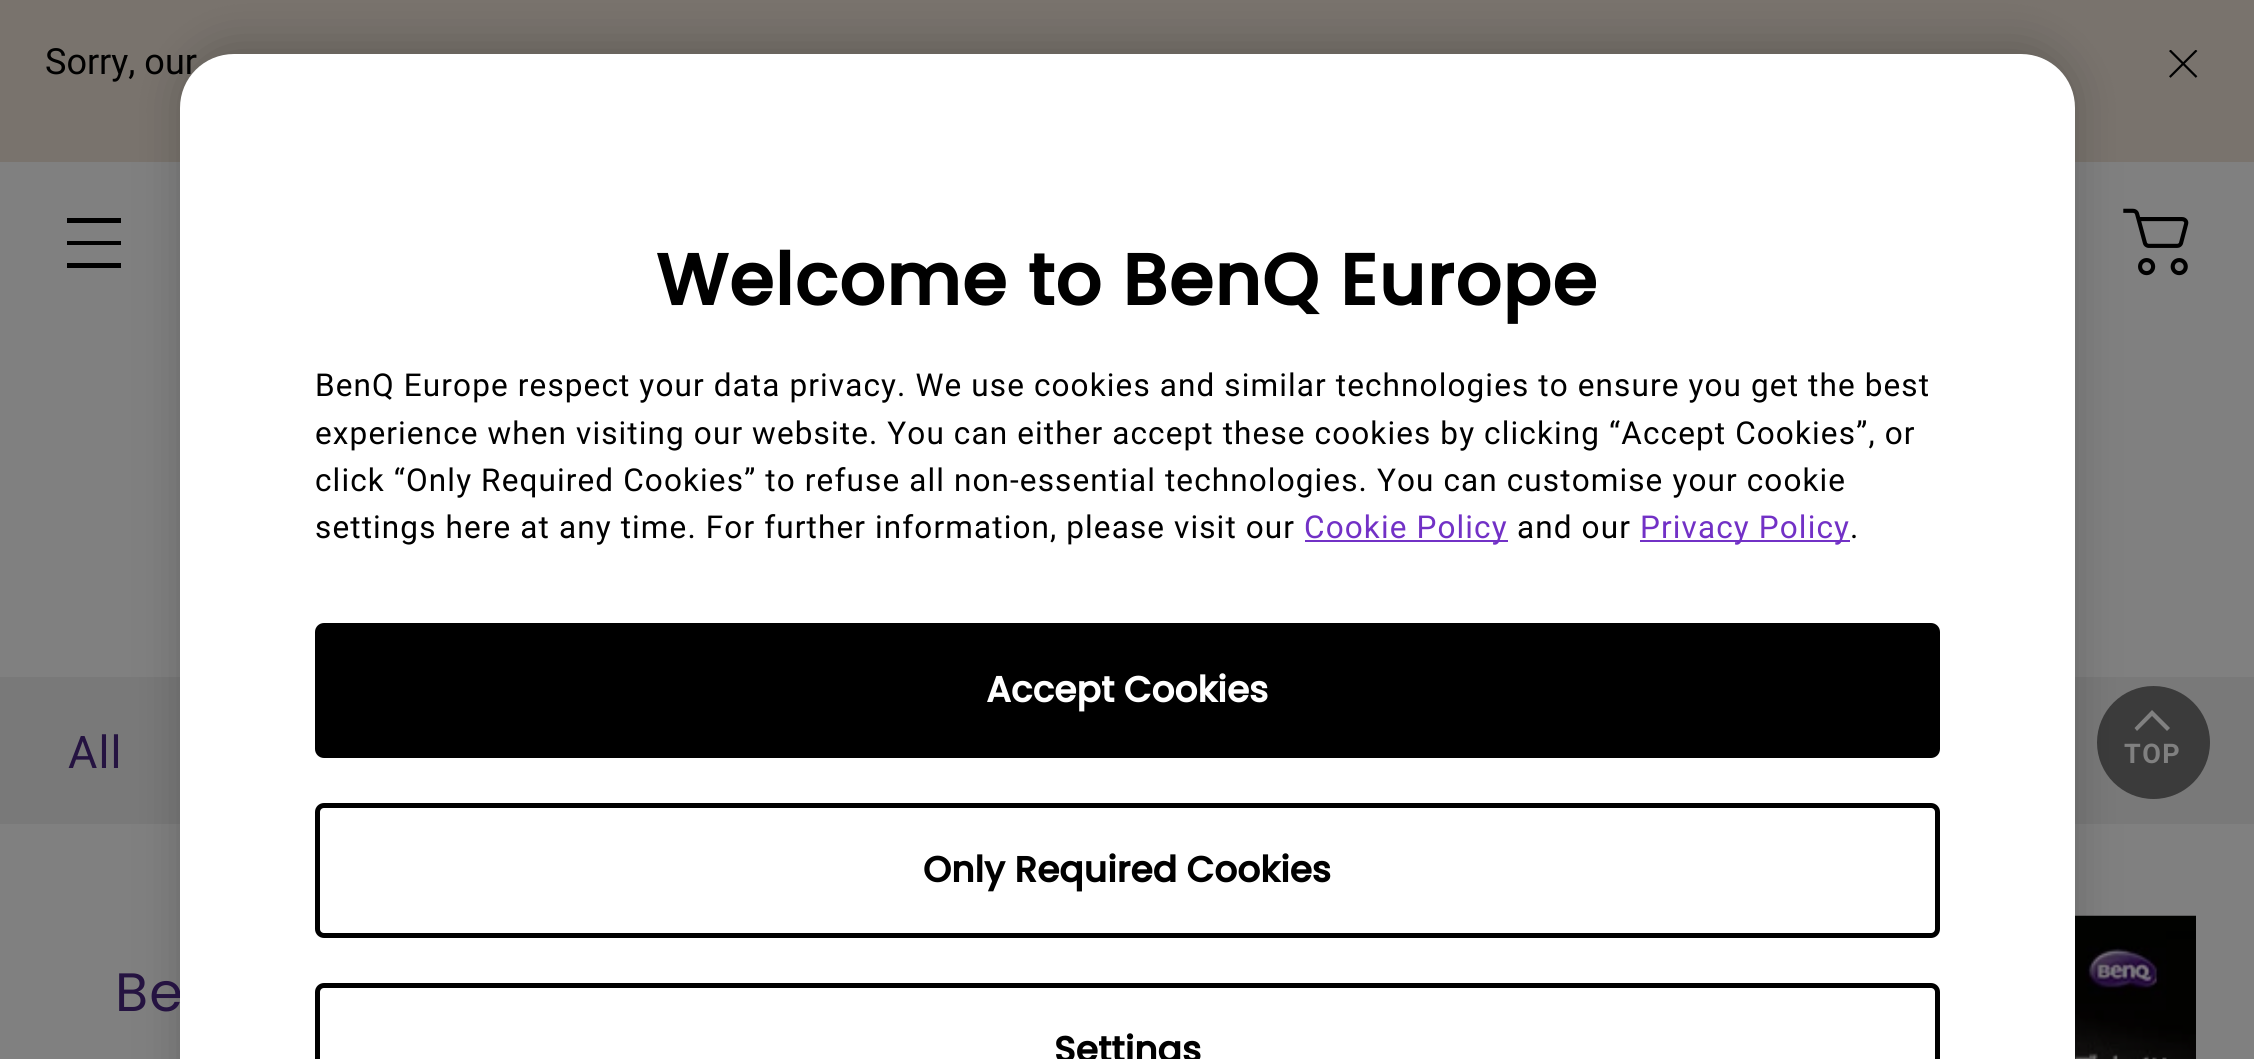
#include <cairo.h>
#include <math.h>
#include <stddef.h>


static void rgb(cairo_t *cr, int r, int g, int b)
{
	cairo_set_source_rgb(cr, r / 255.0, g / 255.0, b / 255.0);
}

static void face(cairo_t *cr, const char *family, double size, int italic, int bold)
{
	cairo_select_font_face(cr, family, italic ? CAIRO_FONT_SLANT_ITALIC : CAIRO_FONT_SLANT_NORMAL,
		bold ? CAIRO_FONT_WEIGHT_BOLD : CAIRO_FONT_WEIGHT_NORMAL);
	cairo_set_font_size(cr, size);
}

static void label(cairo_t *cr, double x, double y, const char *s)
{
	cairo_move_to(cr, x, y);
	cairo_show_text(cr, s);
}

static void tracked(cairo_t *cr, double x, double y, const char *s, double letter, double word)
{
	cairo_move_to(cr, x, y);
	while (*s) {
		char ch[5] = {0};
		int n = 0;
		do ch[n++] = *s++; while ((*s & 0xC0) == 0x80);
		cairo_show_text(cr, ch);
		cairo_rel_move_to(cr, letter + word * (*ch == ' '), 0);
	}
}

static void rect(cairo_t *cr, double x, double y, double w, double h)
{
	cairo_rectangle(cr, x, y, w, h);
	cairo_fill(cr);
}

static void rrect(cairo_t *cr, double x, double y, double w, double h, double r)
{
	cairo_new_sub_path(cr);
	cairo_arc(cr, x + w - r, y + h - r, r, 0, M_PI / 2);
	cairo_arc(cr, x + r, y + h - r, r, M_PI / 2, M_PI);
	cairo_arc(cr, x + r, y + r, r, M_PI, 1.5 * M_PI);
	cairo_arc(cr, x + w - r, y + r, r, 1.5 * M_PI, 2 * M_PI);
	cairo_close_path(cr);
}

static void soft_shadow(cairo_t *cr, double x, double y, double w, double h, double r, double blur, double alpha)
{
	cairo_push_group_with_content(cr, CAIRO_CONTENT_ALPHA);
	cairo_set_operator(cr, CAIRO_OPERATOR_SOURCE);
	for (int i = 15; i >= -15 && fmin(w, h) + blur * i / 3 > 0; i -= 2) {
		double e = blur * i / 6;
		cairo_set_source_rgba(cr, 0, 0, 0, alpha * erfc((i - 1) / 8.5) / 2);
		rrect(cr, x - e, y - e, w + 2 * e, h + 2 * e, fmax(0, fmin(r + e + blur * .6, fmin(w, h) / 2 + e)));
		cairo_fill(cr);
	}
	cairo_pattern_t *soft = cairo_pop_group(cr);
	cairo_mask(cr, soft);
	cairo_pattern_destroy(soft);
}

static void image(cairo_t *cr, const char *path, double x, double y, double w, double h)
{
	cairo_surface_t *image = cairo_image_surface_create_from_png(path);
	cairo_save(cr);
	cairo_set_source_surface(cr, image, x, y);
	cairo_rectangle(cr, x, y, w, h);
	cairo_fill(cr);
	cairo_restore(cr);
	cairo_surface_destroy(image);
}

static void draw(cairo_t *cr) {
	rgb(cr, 128, 128, 128);
	cairo_paint(cr);
	rgb(cr, 121, 115, 109);
	rect(cr, 0, 0, 2254, 162);
	face(cr, "Roboto", 36, 0, 0);
	rgb(cr, 0, 0, 0);
	label(cr, 45, 74, "Sorry, our");
	image(cr, "image0.png", 2169, 50, 29, 28);
	cairo_set_fill_rule(cr, CAIRO_FILL_RULE_EVEN_ODD);
	cairo_new_path(cr);
	cairo_move_to(cr, 121, 223);
	cairo_line_to(cr, 67, 223);
	cairo_line_to(cr, 67, 218);
	cairo_line_to(cr, 121, 218);
	cairo_close_path(cr);
	cairo_move_to(cr, 121, 245);
	cairo_line_to(cr, 67, 245);
	cairo_line_to(cr, 67, 241);
	cairo_line_to(cr, 121, 241);
	cairo_close_path(cr);
	cairo_move_to(cr, 67, 268);
	cairo_line_to(cr, 121, 268);
	cairo_line_to(cr, 121, 263);
	cairo_line_to(cr, 67, 263);
	cairo_close_path(cr);
	cairo_fill(cr);
	image(cr, "image1.png", 2123, 208, 66, 68);
	rgb(cr, 121, 121, 121);
	rect(cr, 0, 677, 2254, 147);
	rgb(cr, 59, 59, 59);
	cairo_arc(cr, 2153.5, 742.5, 56.5, 0, 2 * M_PI);
	cairo_fill(cr);
	rgb(cr, 128, 128, 128);
	cairo_new_path(cr);
	cairo_move_to(cr, 2152, 716);
	cairo_line_to(cr, 2137, 731);
	cairo_line_to(cr, 2134.5, 728);
	cairo_line_to(cr, 2152, 710);
	cairo_line_to(cr, 2170, 728);
	cairo_line_to(cr, 2167, 731);
	cairo_close_path(cr);
	cairo_fill(cr);
	image(cr, "image2.png", 2075, 915, 121, 144);
	rgb(cr, 0, 0, 0);
	soft_shadow(cr, 180, 45, 1895, 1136, 54, 22.5, 0.2);
	face(cr, "Poppins", 54, 0, 0);
	rgb(cr, 37, 19, 65);
	tracked(cr, 115, 1011, "Be", 1.12, 1);
	rgb(cr, 255, 255, 255);
	cairo_new_path(cr);
	cairo_move_to(cr, 234, 54);
	cairo_line_to(cr, 2021, 54);
	cairo_curve_to(cr, 2051, 54, 2075, 78, 2075, 108);
	cairo_line_to(cr, 2075, 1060);
	cairo_line_to(cr, 180, 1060);
	cairo_line_to(cr, 180, 108);
	cairo_curve_to(cr, 180, 78, 204, 54, 234, 54);
	cairo_close_path(cr);
	cairo_fill(cr);
	face(cr, "Poppins", 72, 0, 1);
	rgb(cr, 0, 0, 0);
	tracked(cr, 656, 305, "Welcome to BenQ Europe", 1.12, 0);
	face(cr, "Roboto", 31.5, 0, 0);
	tracked(cr, 315, 396, "BenQ Europe respect your data privacy. We use cookies and similar technologies to ensure you get the best", 1.12, 0);
	tracked(cr, 315, 444, "experience when visiting our website. You can either accept these cookies by clicking “Accept Cookies”, or", 1.12, 0);
	tracked(cr, 315, 491, "click “Only Required Cookies” to refuse all non-essential technologies. You can customise your cookie", 1.12, 0);
	tracked(cr, 315, 538, "settings here at any time. For further information, please visit our", 1.12, 0);
	rgb(cr, 114, 49, 198);
	rect(cr, 1305, 540, 203, 2);
	tracked(cr, 1304, 538, "Cookie Policy", 1.12, 0);
	rgb(cr, 0, 0, 0);
	tracked(cr, 1517, 538, "and our", 1.12, 0);
	rgb(cr, 114, 49, 198);
	rect(cr, 1640, 540, 210, 2);
	tracked(cr, 1640, 538, "Privacy Policy", 1.12, 0);
	rgb(cr, 0, 0, 0);
	tracked(cr, 1850, 538, ".", 1.12, 0);
	rrect(cr, 317.5, 625.5, 1620, 130, 6.5);
	cairo_fill_preserve(cr);
	cairo_set_line_width(cr, 5);
	cairo_stroke(cr);
	face(cr, "Poppins", 36, 0, 1);
	rgb(cr, 255, 255, 255);
	label(cr, 986, 702, "Accept Cookies");
	rrect(cr, 317.5, 805.5, 1620, 130, 6.5);
	rgb(cr, 0, 0, 0);
	cairo_stroke(cr);
	label(cr, 923, 882, "Only Required Cookies");
	rrect(cr, 317.5, 985.5, 1620, 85, 6.5);
	cairo_stroke(cr);
	label(cr, 1054, 1062, "Settings");
	face(cr, "Roboto", 45, 0, 0);
	rgb(cr, 37, 19, 65);
	tracked(cr, 68, 768, "All", 1.12, 0);
	face(cr, "Roboto", 27, 0, 1);
	rgb(cr, 128, 128, 128);
	tracked(cr, 2124, 763, "TOP", 1.5, 0);
}

int main(void) {
	cairo_surface_t *surface = cairo_image_surface_create(CAIRO_FORMAT_RGB24, 2254, 1059);
	cairo_t *cr = cairo_create(surface);
	cairo_font_options_t *options = cairo_font_options_create();
	cairo_font_options_set_hint_metrics(options, CAIRO_HINT_METRICS_OFF);
	cairo_font_options_set_hint_style(options, CAIRO_HINT_STYLE_NONE);
	cairo_set_font_options(cr, options);
	cairo_set_miter_limit(cr, 4);
	draw(cr);
	cairo_surface_write_to_png(surface, "render.png");
	cairo_font_options_destroy(options);
	cairo_destroy(cr);
	cairo_surface_destroy(surface);
	return 0;
}
